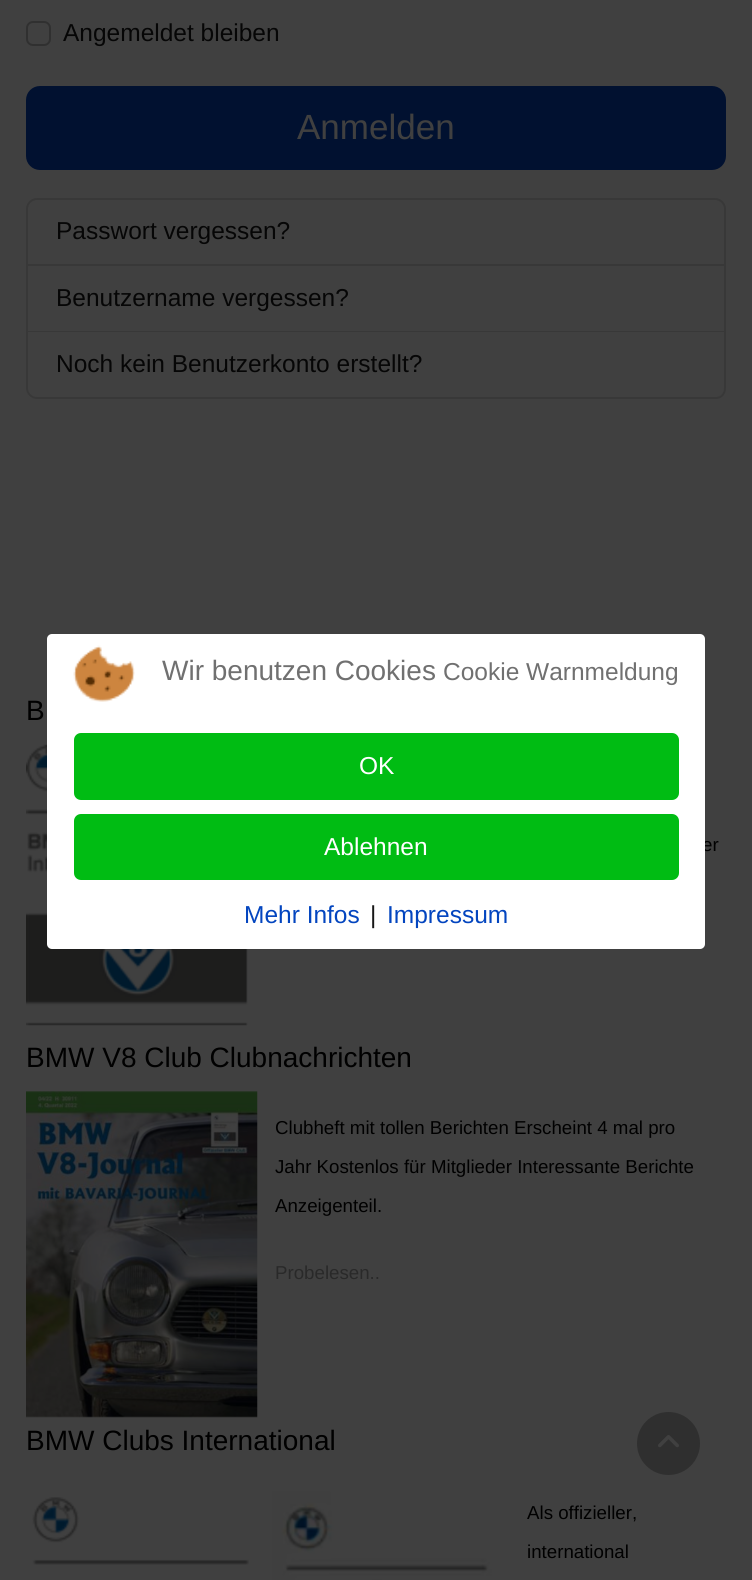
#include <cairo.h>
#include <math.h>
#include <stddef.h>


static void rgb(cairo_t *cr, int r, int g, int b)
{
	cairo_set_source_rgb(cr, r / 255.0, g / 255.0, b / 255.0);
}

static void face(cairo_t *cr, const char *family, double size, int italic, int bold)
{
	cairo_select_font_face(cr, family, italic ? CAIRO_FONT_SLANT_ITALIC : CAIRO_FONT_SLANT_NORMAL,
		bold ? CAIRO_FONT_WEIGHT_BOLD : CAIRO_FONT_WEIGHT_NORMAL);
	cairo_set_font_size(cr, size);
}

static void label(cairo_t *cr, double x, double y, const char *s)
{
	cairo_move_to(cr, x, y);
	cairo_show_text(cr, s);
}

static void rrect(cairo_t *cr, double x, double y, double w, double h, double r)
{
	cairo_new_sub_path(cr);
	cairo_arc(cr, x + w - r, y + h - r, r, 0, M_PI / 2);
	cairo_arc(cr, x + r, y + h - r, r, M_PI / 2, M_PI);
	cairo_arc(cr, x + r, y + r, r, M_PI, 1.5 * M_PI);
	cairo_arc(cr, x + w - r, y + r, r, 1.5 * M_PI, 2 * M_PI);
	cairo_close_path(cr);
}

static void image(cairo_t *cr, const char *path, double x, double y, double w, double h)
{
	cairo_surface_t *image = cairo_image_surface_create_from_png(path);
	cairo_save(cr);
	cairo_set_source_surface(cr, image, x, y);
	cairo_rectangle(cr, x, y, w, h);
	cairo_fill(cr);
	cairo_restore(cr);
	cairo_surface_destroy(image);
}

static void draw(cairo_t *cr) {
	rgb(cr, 64, 64, 64);
	cairo_paint(cr);
	rrect(cr, 27, 22, 23, 23, 6);
	rgb(cr, 48, 48, 48);
	cairo_stroke(cr);
	face(cr, "Liberation Sans", 24.5, 0, 0);
	rgb(cr, 6, 6, 6);
	label(cr, 63, 41, "Angemeldet bleiben");
	rgb(cr, 1, 17, 48);
	rrect(cr, 27, 87, 698, 82, 13);
	cairo_fill_preserve(cr);
	cairo_stroke(cr);
	face(cr, "Liberation Sans", 35, 0, 0);
	rgb(cr, 64, 64, 64);
	label(cr, 297, 139, "Anmelden");
	cairo_new_path(cr);
	cairo_move_to(cr, 37, 199);
	cairo_line_to(cr, 715, 199);
	cairo_curve_to(cr, 720.5, 199, 725, 203.5, 725, 209);
	cairo_line_to(cr, 725, 265);
	cairo_line_to(cr, 27, 265);
	cairo_line_to(cr, 27, 209);
	cairo_curve_to(cr, 27, 203.5, 31.5, 199, 37, 199);
	cairo_close_path(cr);
	rgb(cr, 56, 56, 56);
	cairo_stroke(cr);
	face(cr, "Liberation Sans", 24.5, 0, 0);
	rgb(cr, 6, 6, 6);
	label(cr, 56, 239, "Passwort vergessen?");
	rgb(cr, 56, 56, 56);
	cairo_new_path(cr);
	cairo_move_to(cr, 726, 266);
	cairo_line_to(cr, 726, 332);
	cairo_line_to(cr, 724, 331);
	cairo_line_to(cr, 724, 266);
	cairo_close_path(cr);
	cairo_fill(cr);
	cairo_set_source_rgba(cr, 0, 0, 0, 0.12);
	cairo_new_path(cr);
	cairo_move_to(cr, 726, 332);
	cairo_line_to(cr, 26, 332);
	cairo_line_to(cr, 28, 331);
	cairo_line_to(cr, 724, 331);
	cairo_close_path(cr);
	cairo_fill(cr);
	cairo_new_path(cr);
	cairo_move_to(cr, 26, 332);
	cairo_line_to(cr, 26, 266);
	cairo_line_to(cr, 28, 266);
	cairo_line_to(cr, 28, 331);
	cairo_close_path(cr);
	cairo_fill(cr);
	rgb(cr, 6, 6, 6);
	label(cr, 56, 306, "Benutzername vergessen?");
	rgb(cr, 56, 56, 56);
	cairo_set_fill_rule(cr, CAIRO_FILL_RULE_EVEN_ODD);
	cairo_new_path(cr);
	cairo_move_to(cr, 26, 332);
	cairo_line_to(cr, 726, 332);
	cairo_line_to(cr, 726, 388);
	cairo_curve_to(cr, 726, 394, 722, 399, 716, 399);
	cairo_line_to(cr, 37, 399);
	cairo_curve_to(cr, 31, 399, 26, 394, 26, 388);
	cairo_close_path(cr);
	cairo_move_to(cr, 28, 332);
	cairo_line_to(cr, 724, 332);
	cairo_line_to(cr, 724, 388);
	cairo_curve_to(cr, 724, 393, 721, 397, 716, 397);
	cairo_line_to(cr, 37, 397);
	cairo_curve_to(cr, 32, 397, 28, 393, 28, 388);
	cairo_close_path(cr);
	cairo_fill(cr);
	rgb(cr, 6, 6, 6);
	label(cr, 56, 372, "Noch kein Benutzerkonto erstellt?");
	face(cr, "Liberation Sans", 28, 0, 0);
	rgb(cr, 0, 0, 0);
	label(cr, 26, 720, "B");
	image(cr, "image0.png", 26, 744, 222, 282);
	face(cr, "Liberation Sans", 18.7, 0, 0);
	label(cr, 702, 851, "er");
	face(cr, "Liberation Sans", 28, 0, 0);
	label(cr, 26, 1067, "BMW V8 Club Clubnachrichten");
	image(cr, "image1.png", 26, 1091, 232, 327);
	face(cr, "Liberation Sans", 18.7, 0, 0);
	label(cr, 275, 1134, "Clubheft mit tollen Berichten Erscheint 4 mal pro");
	label(cr, 275, 1173, "Jahr Kostenlos für Mitglieder Interessante Berichte");
	label(cr, 275, 1212, "Anzeigenteil.");
	rgb(cr, 41, 41, 41);
	label(cr, 275, 1279, "Probelesen..");
	face(cr, "Liberation Sans", 28, 0, 0);
	rgb(cr, 0, 0, 0);
	label(cr, 26, 1450, "BMW Clubs International");
	image(cr, "image2.png", 32, 1497, 217, 68);
	image(cr, "image3.png", 272, 1490, 228, 90);
	face(cr, "Liberation Sans", 18.7, 0, 0);
	label(cr, 527, 1519, "Als offizieller,");
	label(cr, 527, 1558, "international");
	rgb(cr, 255, 255, 255);
	rrect(cr, 47, 634, 658, 315, 5);
	cairo_fill(cr);
	image(cr, "image4.png", 73, 645, 62, 57);
	face(cr, "Liberation Sans", 28, 0, 0);
	rgb(cr, 112, 112, 112);
	label(cr, 162, 680, "Wir benutzen Cookies");
	face(cr, "Liberation Sans", 24.5, 0, 0);
	label(cr, 443, 680, "Cookie Warnmeldung");
	rgb(cr, 0, 188, 19);
	rrect(cr, 74, 733, 605, 67, 7);
	cairo_fill(cr);
	rgb(cr, 255, 255, 255);
	label(cr, 359, 774, "OK");
	rgb(cr, 0, 188, 19);
	rrect(cr, 74, 814, 605, 66, 7);
	cairo_fill(cr);
	rgb(cr, 255, 255, 255);
	label(cr, 324, 855, "Ablehnen");
	rgb(cr, 3, 69, 191);
	label(cr, 244, 923, "Mehr Infos");
	rgb(cr, 23, 23, 23);
	label(cr, 370, 923, "|");
	rgb(cr, 3, 69, 191);
	label(cr, 387, 923, "Impressum");
	rgb(cr, 47, 47, 47);
	cairo_new_path(cr);
	cairo_arc(cr, 668.5, 1443.5, 31.5, 0, 2 * M_PI);
	cairo_fill(cr);
	image(cr, "image5.png", 658, 1435, 21, 13);
}

int main(void) {
	cairo_surface_t *surface = cairo_image_surface_create(CAIRO_FORMAT_RGB24, 752, 1580);
	cairo_t *cr = cairo_create(surface);
	cairo_font_options_t *options = cairo_font_options_create();
	cairo_font_options_set_hint_metrics(options, CAIRO_HINT_METRICS_OFF);
	cairo_font_options_set_hint_style(options, CAIRO_HINT_STYLE_NONE);
	cairo_set_font_options(cr, options);
	cairo_set_miter_limit(cr, 4);
	draw(cr);
	cairo_surface_write_to_png(surface, "render.png");
	cairo_font_options_destroy(options);
	cairo_destroy(cr);
	cairo_surface_destroy(surface);
	return 0;
}
